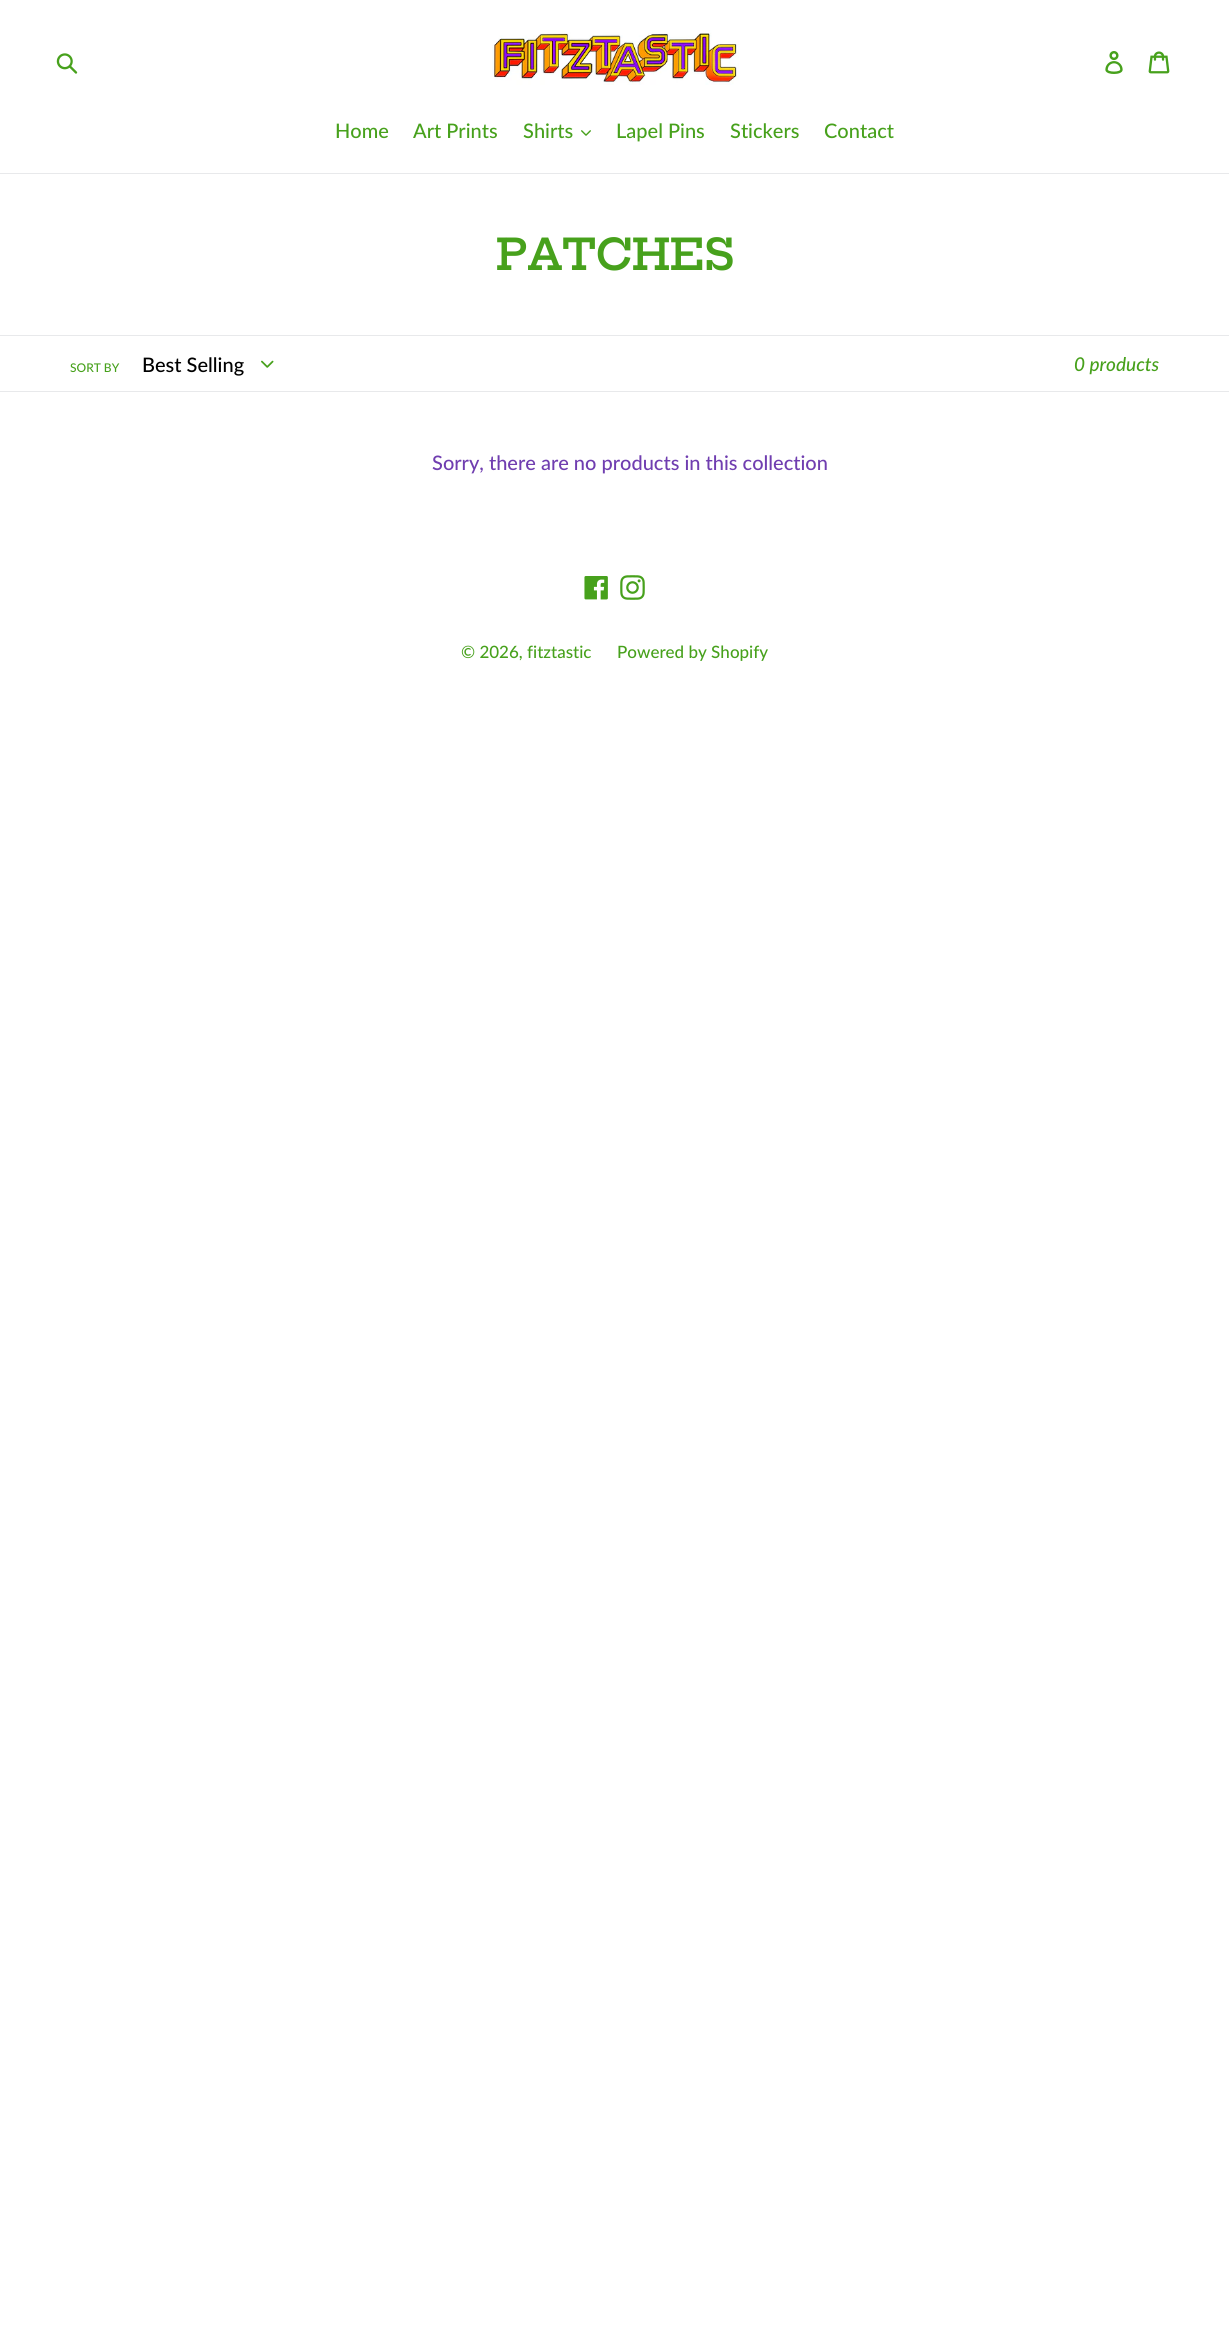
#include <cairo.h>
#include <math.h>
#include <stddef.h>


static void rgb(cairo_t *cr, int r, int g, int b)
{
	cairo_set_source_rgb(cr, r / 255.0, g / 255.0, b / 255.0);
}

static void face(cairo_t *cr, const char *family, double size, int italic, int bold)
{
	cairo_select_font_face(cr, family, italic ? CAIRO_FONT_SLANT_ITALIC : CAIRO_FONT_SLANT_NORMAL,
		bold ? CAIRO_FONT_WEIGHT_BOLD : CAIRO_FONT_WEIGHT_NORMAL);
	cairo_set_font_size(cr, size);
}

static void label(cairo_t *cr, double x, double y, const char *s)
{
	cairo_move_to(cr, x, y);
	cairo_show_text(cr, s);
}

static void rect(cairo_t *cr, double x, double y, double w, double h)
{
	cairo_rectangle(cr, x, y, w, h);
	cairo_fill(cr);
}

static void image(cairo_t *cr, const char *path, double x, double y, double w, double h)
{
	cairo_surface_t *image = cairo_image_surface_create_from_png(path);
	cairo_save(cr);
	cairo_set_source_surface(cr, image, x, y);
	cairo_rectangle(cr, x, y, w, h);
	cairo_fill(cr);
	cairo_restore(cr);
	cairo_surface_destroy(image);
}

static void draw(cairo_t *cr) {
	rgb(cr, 255, 255, 255);
	cairo_paint(cr);
	image(cr, "image0.png", 56, 53, 22, 21);
	image(cr, "image1.png", 492, 30, 247, 55);
	image(cr, "image2.png", 1105, 51, 18, 23);
	image(cr, "image3.png", 1148, 51, 22, 23);
	rgb(cr, 232, 233, 235);
	rect(cr, 0, 173, 1229, 1);
	face(cr, "Lato Medium", 20, 0, 0);
	rgb(cr, 71, 161, 28);
	label(cr, 335, 138, "Home");
	label(cr, 413, 138, "Art Prints");
	label(cr, 523, 138, "Shirts");
	image(cr, "image4.png", 581, 130, 10, 6);
	label(cr, 616, 138, "Lapel Pins");
	label(cr, 730, 138, "Stickers");
	label(cr, 824, 138, "Contact");
	face(cr, "Hepta Slab SemiBold", 43, 0, 0);
	label(cr, 496, 270, "PATCHES");
	rgb(cr, 232, 233, 235);
	rect(cr, 0, 335, 1229, 1);
	rect(cr, 0, 391, 1229, 1);
	face(cr, "Lato Medium", 12, 0, 0);
	rgb(cr, 71, 161, 28);
	label(cr, 70, 372, "SORT BY");
	face(cr, "Lato Medium", 20, 0, 0);
	rgb(cr, 0, 0, 0);
	label(cr, 142, 372, "Best Selling");
	image(cr, "image5.png", 261, 360, 13, 8);
	face(cr, "Lato Medium", 19, 1, 0);
	rgb(cr, 71, 161, 28);
	label(cr, 1074, 371, "0 products");
	face(cr, "Lato Medium", 20, 0, 0);
	rgb(cr, 112, 62, 176);
	label(cr, 432, 470, "Sorry, there are no products in this collection");
	image(cr, "image6.png", 584, 576, 24, 24);
	image(cr, "image7.png", 620, 575, 25, 25);
	face(cr, "Lato Medium", 17, 0, 0);
	rgb(cr, 71, 161, 28);
	label(cr, 461, 658, "© 2026, fitztastic");
	label(cr, 617, 658, "Powered by Shopify");
}

int main(void) {
	cairo_surface_t *surface = cairo_image_surface_create(CAIRO_FORMAT_RGB24, 1229, 2350);
	cairo_t *cr = cairo_create(surface);
	cairo_font_options_t *options = cairo_font_options_create();
	cairo_font_options_set_hint_metrics(options, CAIRO_HINT_METRICS_OFF);
	cairo_font_options_set_hint_style(options, CAIRO_HINT_STYLE_NONE);
	cairo_set_font_options(cr, options);
	cairo_set_miter_limit(cr, 4);
	draw(cr);
	cairo_surface_write_to_png(surface, "render.png");
	cairo_font_options_destroy(options);
	cairo_destroy(cr);
	cairo_surface_destroy(surface);
	return 0;
}
